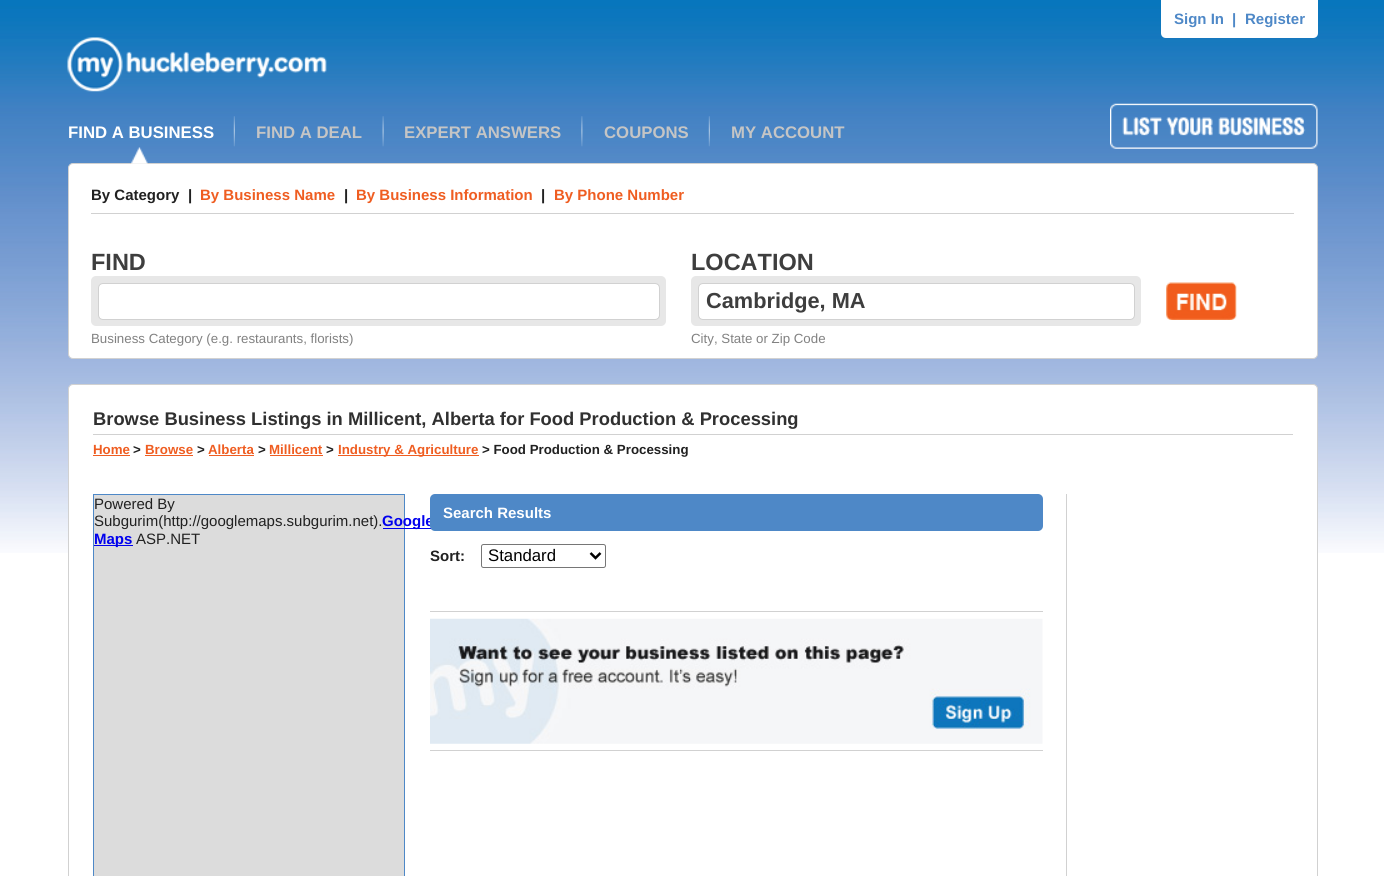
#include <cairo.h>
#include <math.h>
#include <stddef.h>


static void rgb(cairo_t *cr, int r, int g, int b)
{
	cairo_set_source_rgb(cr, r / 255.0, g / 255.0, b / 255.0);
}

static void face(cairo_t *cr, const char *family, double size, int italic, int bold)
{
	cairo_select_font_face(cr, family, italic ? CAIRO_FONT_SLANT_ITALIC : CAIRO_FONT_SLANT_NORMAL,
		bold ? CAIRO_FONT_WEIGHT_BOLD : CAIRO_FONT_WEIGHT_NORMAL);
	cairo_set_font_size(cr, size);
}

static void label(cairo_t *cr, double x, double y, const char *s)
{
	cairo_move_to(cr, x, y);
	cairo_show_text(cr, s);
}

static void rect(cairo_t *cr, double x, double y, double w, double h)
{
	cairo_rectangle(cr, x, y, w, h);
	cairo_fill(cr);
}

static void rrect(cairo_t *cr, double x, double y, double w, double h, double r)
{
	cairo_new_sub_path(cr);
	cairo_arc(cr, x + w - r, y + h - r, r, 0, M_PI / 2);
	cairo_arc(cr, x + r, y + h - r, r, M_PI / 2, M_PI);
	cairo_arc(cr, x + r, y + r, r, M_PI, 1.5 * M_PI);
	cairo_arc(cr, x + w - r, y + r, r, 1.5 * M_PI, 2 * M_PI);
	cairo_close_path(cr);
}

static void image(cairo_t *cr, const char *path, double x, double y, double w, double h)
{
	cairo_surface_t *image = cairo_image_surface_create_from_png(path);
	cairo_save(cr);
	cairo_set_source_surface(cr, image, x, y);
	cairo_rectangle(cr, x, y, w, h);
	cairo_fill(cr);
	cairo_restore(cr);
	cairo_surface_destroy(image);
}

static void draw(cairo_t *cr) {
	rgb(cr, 255, 255, 255);
	cairo_paint(cr);
	image(cr, "image0.png", 0, 0, 1384, 553);
	rgb(cr, 255, 255, 255);
	cairo_new_path(cr);
	cairo_move_to(cr, 1161, 0);
	cairo_line_to(cr, 1318, 0);
	cairo_line_to(cr, 1318, 33);
	cairo_curve_to(cr, 1318, 36, 1316, 38, 1313, 38);
	cairo_line_to(cr, 1166, 38);
	cairo_curve_to(cr, 1163, 38, 1161, 36, 1161, 33);
	cairo_close_path(cr);
	cairo_fill(cr);
	face(cr, "Liberation Sans", 15, 0, 1);
	rgb(cr, 78, 136, 199);
	label(cr, 1174, 24, "Sign In");
	label(cr, 1232, 24, "|");
	label(cr, 1245, 24, "Register");
	image(cr, "image1.png", 67, 37, 260, 55);
	face(cr, "Liberation Sans", 16.75, 0, 1);
	rgb(cr, 255, 255, 255);
	label(cr, 68, 138, "FIND A BUSINESS");
	image(cr, "image2.png", 233, 116, 2, 31);
	rgb(cr, 197, 197, 197);
	label(cr, 256, 138, "FIND A DEAL");
	image(cr, "image3.png", 382, 116, 2, 31);
	label(cr, 404, 138, "EXPERT ANSWERS");
	image(cr, "image4.png", 581, 116, 2, 31);
	label(cr, 604, 138, "COUPONS");
	image(cr, "image2.png", 708, 116, 2, 31);
	label(cr, 731, 138, "MY ACCOUNT");
	image(cr, "image5.png", 1110, 103, 208, 46);
	rgb(cr, 255, 255, 255);
	rrect(cr, 68.5, 163.5, 1249, 195, 4.5);
	cairo_fill_preserve(cr);
	rgb(cr, 209, 209, 209);
	cairo_set_line_width(cr, 1);
	cairo_stroke(cr);
	image(cr, "image6.png", 131, 147, 17, 17);
	rect(cr, 91, 213, 1203, 1);
	face(cr, "Liberation Sans", 15, 0, 1);
	rgb(cr, 33, 33, 33);
	label(cr, 91, 200, "By Category");
	label(cr, 188, 200, "|");
	rgb(cr, 239, 93, 33);
	label(cr, 200, 200, "By Business Name");
	rgb(cr, 33, 33, 33);
	label(cr, 344, 200, "|");
	rgb(cr, 239, 93, 33);
	label(cr, 356, 200, "By Business Information");
	rgb(cr, 33, 33, 33);
	label(cr, 541, 200, "|");
	rgb(cr, 239, 93, 33);
	label(cr, 554, 200, "By Phone Number");
	face(cr, "Liberation Sans", 23.5, 0, 1);
	rgb(cr, 62, 62, 62);
	label(cr, 91, 270, "FIND");
	label(cr, 691, 270, "LOCATION");
	rgb(cr, 231, 231, 231);
	rrect(cr, 91, 276, 575, 50, 5);
	cairo_fill(cr);
	rgb(cr, 255, 255, 255);
	rrect(cr, 98.5, 283.5, 561, 36, 4.5);
	cairo_fill_preserve(cr);
	rgb(cr, 209, 209, 209);
	cairo_stroke(cr);
	rgb(cr, 255, 255, 255);
	rect(cr, 100, 285, 558, 33);
	rgb(cr, 231, 231, 231);
	rrect(cr, 691, 276, 450, 50, 5);
	cairo_fill(cr);
	rgb(cr, 255, 255, 255);
	rrect(cr, 698.5, 283.5, 436, 36, 4.5);
	cairo_fill_preserve(cr);
	rgb(cr, 209, 209, 209);
	cairo_stroke(cr);
	rgb(cr, 255, 255, 255);
	rect(cr, 700, 285, 433, 33);
	face(cr, "Liberation Sans", 21.75, 0, 1);
	rgb(cr, 62, 62, 62);
	label(cr, 706, 308, "Cambridge, MA");
	image(cr, "image7.png", 1166, 282, 71, 38);
	face(cr, "Liberation Sans", 13.3, 0, 0);
	rgb(cr, 129, 129, 129);
	label(cr, 91, 343, "Business Category (e.g. restaurants, florists)");
	label(cr, 691, 343, "City, State or Zip Code");
	rgb(cr, 255, 255, 255);
	rrect(cr, 68.5, 384.5, 1249, 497, 4.5);
	cairo_fill_preserve(cr);
	rgb(cr, 209, 209, 209);
	cairo_stroke(cr);
	rect(cr, 93, 434, 1200, 1);
	face(cr, "Liberation Sans", 18.35, 0, 1);
	rgb(cr, 48, 48, 48);
	label(cr, 93, 425, "Browse Business Listings in Millicent, Alberta for Food Production & Processing");
	face(cr, "Liberation Sans", 13.3, 0, 1);
	rgb(cr, 239, 93, 33);
	label(cr, 93, 454, "Home");
	rect(cr, 93, 455, 37, 1);
	rgb(cr, 33, 33, 33);
	label(cr, 133, 454, ">");
	rgb(cr, 239, 93, 33);
	label(cr, 145, 454, "Browse");
	rect(cr, 145, 455, 48, 1);
	rgb(cr, 33, 33, 33);
	label(cr, 197, 454, ">");
	rgb(cr, 239, 93, 33);
	label(cr, 208, 454, "Alberta");
	rect(cr, 209, 455, 45, 1);
	rgb(cr, 33, 33, 33);
	label(cr, 258, 454, ">");
	rgb(cr, 239, 93, 33);
	label(cr, 269, 454, "Millicent");
	rect(cr, 270, 455, 53, 1);
	rgb(cr, 33, 33, 33);
	label(cr, 326, 454, ">");
	rgb(cr, 239, 93, 33);
	rect(cr, 338, 455, 141, 1);
	label(cr, 338, 454, "Industry & Agriculture");
	rgb(cr, 33, 33, 33);
	label(cr, 482, 454, "> Food Production & Processing");
	cairo_rectangle(cr, 93.5, 494.5, 311, 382);
	rgb(cr, 78, 136, 199);
	cairo_stroke(cr);
	rgb(cr, 220, 220, 220);
	rect(cr, 94, 495, 310, 381);
	face(cr, "Liberation Sans", 15, 0, 0);
	rgb(cr, 33, 33, 33);
	label(cr, 94, 509, "Powered By");
	label(cr, 94, 526, "Subgurim(http://googlemaps.subgurim.net).");
	rgb(cr, 0, 0, 238);
	rect(cr, 383, 528, 51, 1);
	face(cr, "Liberation Sans", 15, 0, 1);
	label(cr, 382, 526, "Google");
	rect(cr, 94, 545, 39, 1);
	label(cr, 94, 544, "Maps");
	face(cr, "Liberation Sans", 15, 0, 0);
	rgb(cr, 33, 33, 33);
	label(cr, 136, 544, "ASP.NET");
	rgb(cr, 209, 209, 209);
	rect(cr, 1066, 494, 1, 382);
	rgb(cr, 78, 136, 199);
	rrect(cr, 430, 494, 613, 37, 5);
	cairo_fill(cr);
	face(cr, "Liberation Sans", 15, 0, 1);
	rgb(cr, 255, 255, 255);
	label(cr, 443, 518, "Search Results");
	rgb(cr, 33, 33, 33);
	label(cr, 430, 561, "Sort:");
	rrect(cr, 481.5, 544.5, 124, 23, 2);
	rgb(cr, 118, 118, 118);
	cairo_stroke(cr);
	cairo_new_path(cr);
	cairo_move_to(cr, 590.5, 553);
	cairo_line_to(cr, 595.5, 558);
	cairo_line_to(cr, 600.5, 553);
	rgb(cr, 0, 0, 0);
	cairo_set_line_width(cr, 2.5);
	cairo_stroke(cr);
	face(cr, "Liberation Sans", 16.75, 0, 0);
	label(cr, 488, 561, "Standard");
	rgb(cr, 209, 209, 209);
	rect(cr, 430, 611, 613, 1);
	rect(cr, 430, 750, 613, 1);
	image(cr, "image8.png", 430, 618, 613, 126);
}

int main(void) {
	cairo_surface_t *surface = cairo_image_surface_create(CAIRO_FORMAT_RGB24, 1384, 876);
	cairo_t *cr = cairo_create(surface);
	cairo_font_options_t *options = cairo_font_options_create();
	cairo_font_options_set_hint_metrics(options, CAIRO_HINT_METRICS_OFF);
	cairo_font_options_set_hint_style(options, CAIRO_HINT_STYLE_NONE);
	cairo_set_font_options(cr, options);
	cairo_set_miter_limit(cr, 4);
	draw(cr);
	cairo_surface_write_to_png(surface, "render.png");
	cairo_font_options_destroy(options);
	cairo_destroy(cr);
	cairo_surface_destroy(surface);
	return 0;
}
